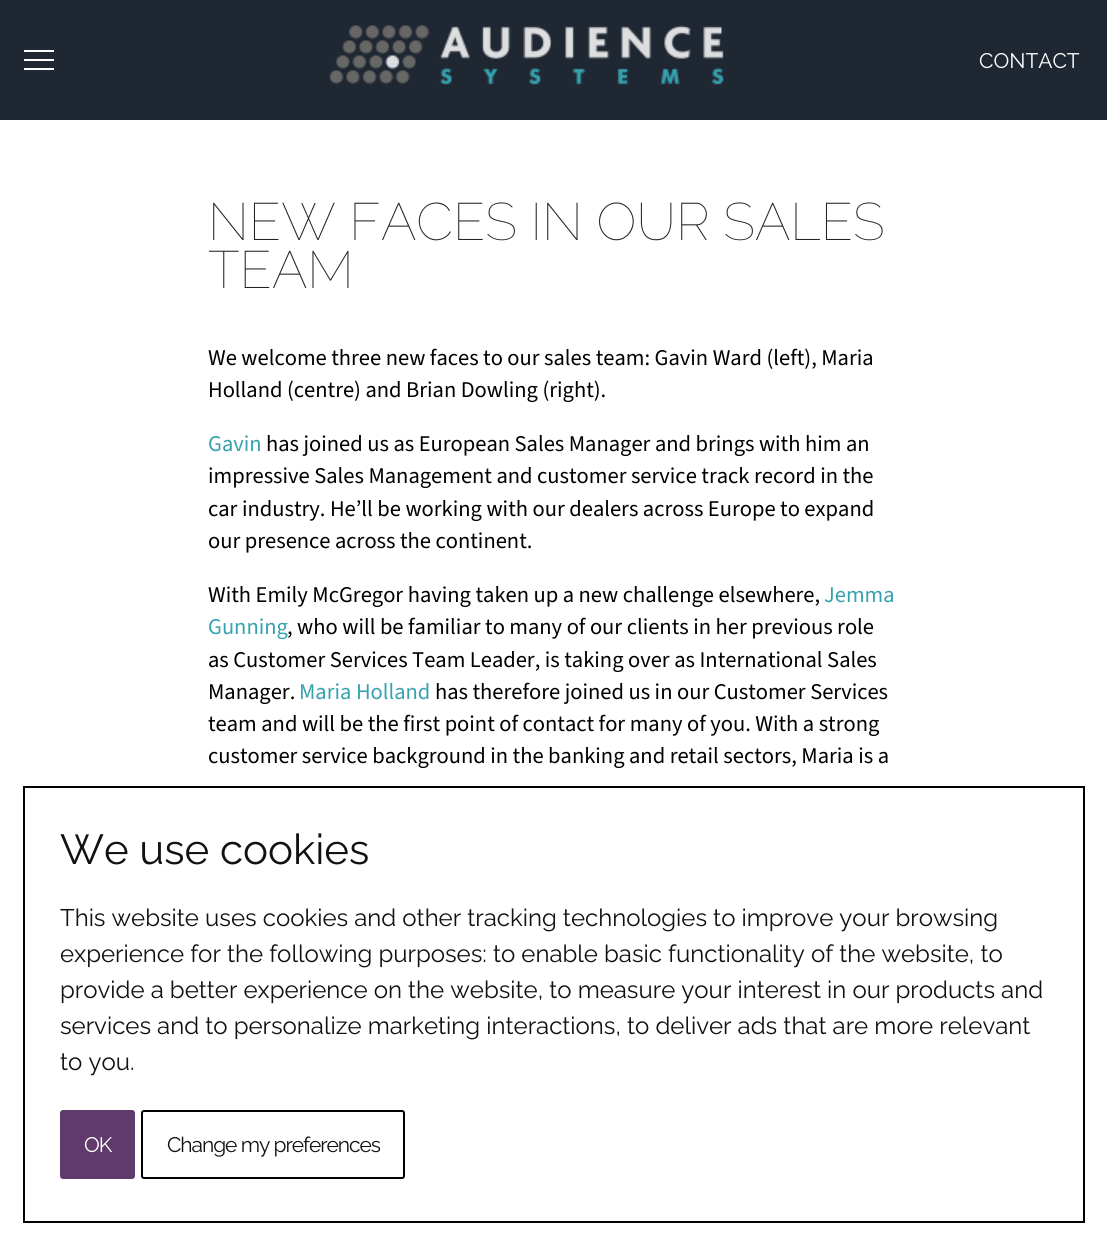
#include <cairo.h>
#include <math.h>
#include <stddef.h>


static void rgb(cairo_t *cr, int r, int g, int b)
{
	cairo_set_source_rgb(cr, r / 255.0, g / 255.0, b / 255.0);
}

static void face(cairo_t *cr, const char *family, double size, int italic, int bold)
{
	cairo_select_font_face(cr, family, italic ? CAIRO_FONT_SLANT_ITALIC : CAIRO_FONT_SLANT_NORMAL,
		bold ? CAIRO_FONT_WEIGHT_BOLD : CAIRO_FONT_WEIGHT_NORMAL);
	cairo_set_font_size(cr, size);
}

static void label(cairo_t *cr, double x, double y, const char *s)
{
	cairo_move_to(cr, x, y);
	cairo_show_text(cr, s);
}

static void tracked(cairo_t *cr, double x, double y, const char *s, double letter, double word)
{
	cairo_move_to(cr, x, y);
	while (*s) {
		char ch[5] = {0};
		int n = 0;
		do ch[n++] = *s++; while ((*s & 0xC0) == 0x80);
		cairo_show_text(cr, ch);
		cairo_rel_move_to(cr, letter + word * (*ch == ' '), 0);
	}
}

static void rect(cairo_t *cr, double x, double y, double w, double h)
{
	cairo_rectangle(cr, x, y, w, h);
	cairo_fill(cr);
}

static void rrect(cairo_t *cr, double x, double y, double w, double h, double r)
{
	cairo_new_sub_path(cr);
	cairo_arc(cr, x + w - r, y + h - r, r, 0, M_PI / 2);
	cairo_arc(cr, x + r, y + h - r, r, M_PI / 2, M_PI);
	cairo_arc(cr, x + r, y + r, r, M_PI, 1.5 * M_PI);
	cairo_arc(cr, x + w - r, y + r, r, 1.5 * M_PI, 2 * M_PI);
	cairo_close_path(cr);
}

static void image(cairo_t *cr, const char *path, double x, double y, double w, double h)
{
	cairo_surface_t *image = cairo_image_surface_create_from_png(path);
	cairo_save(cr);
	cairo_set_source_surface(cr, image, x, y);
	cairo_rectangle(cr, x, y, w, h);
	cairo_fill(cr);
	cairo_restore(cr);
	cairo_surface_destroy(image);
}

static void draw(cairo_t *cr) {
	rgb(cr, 255, 255, 255);
	cairo_paint(cr);
	rgb(cr, 31, 39, 50);
	rect(cr, 0, 0, 1107, 120);
	rgb(cr, 255, 255, 255);
	rect(cr, 24, 50, 30, 2);
	rect(cr, 24, 59, 30, 2);
	rect(cr, 24, 68, 30, 2);
	image(cr, "image0.png", 329, 25, 395, 60);
	face(cr, "Raleway", 21, 0, 0);
	label(cr, 979, 68, "CONTACT");
	face(cr, "Raleway Thin", 52.5, 0, 0);
	rgb(cr, 34, 34, 42);
	label(cr, 208, 240, "NEW FACES IN OUR SALES");
	label(cr, 208, 288, "TEAM");
	face(cr, "Source Sans 3", 22.5, 0, 0);
	rgb(cr, 0, 0, 0);
	label(cr, 208, 365, "We welcome three new faces to our sales team: Gavin Ward (left), Maria");
	label(cr, 208, 397, "Holland (centre) and Brian Dowling (right).");
	rgb(cr, 54, 162, 174);
	label(cr, 208, 451, "Gavin");
	rgb(cr, 0, 0, 0);
	label(cr, 266, 451, "has joined us as European Sales Manager and brings with him an");
	label(cr, 208, 483, "impressive Sales Management and customer service track record in the");
	label(cr, 208, 516, "car industry. He’ll be working with our dealers across Europe to expand");
	label(cr, 208, 548, "our presence across the continent.");
	label(cr, 208, 602, "With Emily McGregor having taken up a new challenge elsewhere,");
	rgb(cr, 54, 162, 174);
	label(cr, 824, 602, "Jemma");
	label(cr, 208, 634, "Gunning");
	rgb(cr, 0, 0, 0);
	label(cr, 287, 634, ", who will be familiar to many of our clients in her previous role");
	label(cr, 208, 667, "as Customer Services Team Leader, is taking over as International Sales");
	label(cr, 208, 699, "Manager.");
	rgb(cr, 54, 162, 174);
	label(cr, 299, 699, "Maria Holland");
	rgb(cr, 0, 0, 0);
	label(cr, 435, 699, "has therefore joined us in our Customer Services");
	label(cr, 208, 731, "team and will be the first point of contact for many of you. With a strong");
	label(cr, 208, 763, "customer service background in the banking and retail sectors, Maria is a");
	cairo_rectangle(cr, 24, 787, 1060, 435);
	cairo_stroke(cr);
	face(cr, "Raleway", 42, 0, 0);
	rgb(cr, 17, 17, 17);
	label(cr, 60, 864, "We use cookies");
	face(cr, "Raleway", 24, 0, 0);
	label(cr, 60, 926, "This website uses cookies and other tracking technologies to improve your browsing");
	label(cr, 60, 962, "experience for the following purposes: to enable basic functionality of the website, to");
	label(cr, 60, 998, "provide a better experience on the website, to measure your interest in our products and");
	label(cr, 60, 1034, "services and to personalize marketing interactions, to deliver ads that are more relevant");
	label(cr, 60, 1070, "to you.");
	rgb(cr, 95, 58, 106);
	rrect(cr, 60, 1110, 75, 69, 3);
	cairo_fill(cr);
	face(cr, "Raleway", 21, 0, 0);
	rgb(cr, 255, 255, 255);
	tracked(cr, 84, 1152, "OK", -1.05, 0);
	rrect(cr, 142, 1111, 262, 67, 2);
	rgb(cr, 0, 0, 0);
	cairo_stroke(cr);
	rgb(cr, 17, 17, 17);
	tracked(cr, 167, 1152, "Change my preferences", -1.05, 0);
}

int main(void) {
	cairo_surface_t *surface = cairo_image_surface_create(CAIRO_FORMAT_RGB24, 1107, 1244);
	cairo_t *cr = cairo_create(surface);
	cairo_font_options_t *options = cairo_font_options_create();
	cairo_font_options_set_hint_metrics(options, CAIRO_HINT_METRICS_OFF);
	cairo_font_options_set_hint_style(options, CAIRO_HINT_STYLE_NONE);
	cairo_set_font_options(cr, options);
	cairo_set_miter_limit(cr, 4);
	draw(cr);
	cairo_surface_write_to_png(surface, "render.png");
	cairo_font_options_destroy(options);
	cairo_destroy(cr);
	cairo_surface_destroy(surface);
	return 0;
}
